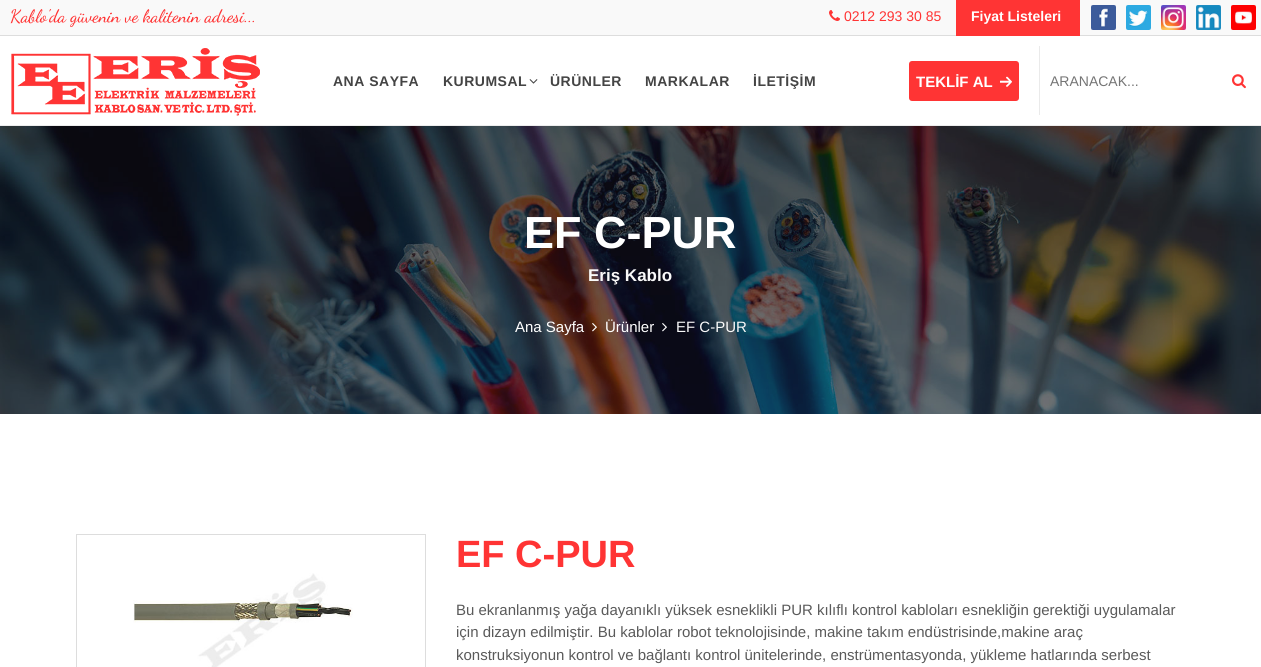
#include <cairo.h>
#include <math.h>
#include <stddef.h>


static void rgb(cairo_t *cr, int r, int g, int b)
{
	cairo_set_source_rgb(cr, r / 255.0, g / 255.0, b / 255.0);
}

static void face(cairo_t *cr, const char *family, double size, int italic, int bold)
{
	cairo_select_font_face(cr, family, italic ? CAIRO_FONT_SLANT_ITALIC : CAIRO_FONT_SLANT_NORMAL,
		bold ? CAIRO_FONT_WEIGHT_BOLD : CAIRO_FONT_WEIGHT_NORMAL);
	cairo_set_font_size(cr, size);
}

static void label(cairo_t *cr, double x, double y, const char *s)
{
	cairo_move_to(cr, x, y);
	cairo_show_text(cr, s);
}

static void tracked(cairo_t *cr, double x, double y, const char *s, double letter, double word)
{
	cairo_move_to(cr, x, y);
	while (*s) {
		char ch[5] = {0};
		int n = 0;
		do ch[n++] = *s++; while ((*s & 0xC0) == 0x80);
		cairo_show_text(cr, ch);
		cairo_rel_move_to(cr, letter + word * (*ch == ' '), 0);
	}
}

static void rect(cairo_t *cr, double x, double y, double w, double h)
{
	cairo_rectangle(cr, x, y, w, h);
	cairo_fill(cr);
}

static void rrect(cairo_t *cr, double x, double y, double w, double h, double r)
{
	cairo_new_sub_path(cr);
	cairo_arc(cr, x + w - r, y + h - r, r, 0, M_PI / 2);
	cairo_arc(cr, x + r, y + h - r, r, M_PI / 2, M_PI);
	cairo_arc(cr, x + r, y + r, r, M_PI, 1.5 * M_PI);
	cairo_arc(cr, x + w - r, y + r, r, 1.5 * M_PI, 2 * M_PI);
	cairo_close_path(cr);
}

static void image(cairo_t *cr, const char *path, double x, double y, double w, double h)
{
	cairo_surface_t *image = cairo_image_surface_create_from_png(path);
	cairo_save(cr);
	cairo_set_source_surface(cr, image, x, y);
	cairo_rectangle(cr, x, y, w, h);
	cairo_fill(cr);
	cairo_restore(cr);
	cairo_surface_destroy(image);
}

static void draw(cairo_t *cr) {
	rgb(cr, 255, 255, 255);
	cairo_paint(cr);
	rgb(cr, 249, 249, 249);
	rect(cr, 0, 0, 1261, 35);
	rgb(cr, 221, 221, 221);
	rect(cr, 0, 35, 1261, 1);
	face(cr, "Dancing Script Medium", 18, 0, 0);
	rgb(cr, 255, 52, 52);
	label(cr, 10, 22, "Kablo'da güvenin ve kalitenin adresi...");
	image(cr, "image0.png", 829, 10, 11, 11);
	face(cr, "Liberation Sans", 14, 0, 0);
	label(cr, 844, 21, "0212 293 30 85");
	rect(cr, 956, 0, 124, 36);
	face(cr, "Liberation Sans", 14, 0, 1);
	rgb(cr, 255, 255, 255);
	label(cr, 971, 21, "Fiyat Listeleri");
	image(cr, "image1.png", 1091, 5, 25, 25);
	image(cr, "image2.png", 1126, 5, 25, 25);
	image(cr, "image3.png", 1161, 5, 25, 25);
	image(cr, "image4.png", 1196, 5, 25, 25);
	image(cr, "image5.png", 1231, 5, 25, 25);
	rgb(cr, 237, 237, 237);
	rect(cr, 0, 125, 1261, 1);
	image(cr, "image6.png", 11, 48, 249, 68);
	rgb(cr, 68, 68, 68);
	tracked(cr, 333, 86, "ANA SAYFA", 0.5, 0);
	tracked(cr, 443, 86, "KURUMSAL", 0.5, 0);
	image(cr, "image7.png", 529, 79, 9, 5);
	tracked(cr, 550, 86, "ÜRÜNLER", 0.5, 0);
	tracked(cr, 645, 86, "MARKALAR", 0.5, 0);
	tracked(cr, 753, 86, "İLETİŞİM", 0.5, 0);
	rgb(cr, 255, 52, 52);
	rrect(cr, 910, 62, 108, 38, 2);
	cairo_fill_preserve(cr);
	cairo_stroke(cr);
	face(cr, "Liberation Sans", 15, 0, 1);
	rgb(cr, 255, 255, 255);
	label(cr, 916, 87, "TEKLİF AL");
	image(cr, "image8.png", 1000, 76, 12, 11);
	rgb(cr, 234, 234, 234);
	rect(cr, 1039, 46, 1, 69);
	face(cr, "Liberation Sans", 14, 0, 0);
	rgb(cr, 117, 117, 117);
	label(cr, 1050, 86, "ARANACAK...");
	image(cr, "image9.png", 1232, 74, 14, 15);
	image(cr, "image10.png", 0, 126, 1261, 288);
	face(cr, "Liberation Sans", 45, 0, 1);
	rgb(cr, 255, 255, 255);
	label(cr, 524, 248, "EF C-PUR");
	face(cr, "Liberation Sans", 17, 0, 1);
	rgb(cr, 249, 249, 249);
	label(cr, 588, 281, "Eriş Kablo");
	face(cr, "Liberation Sans", 15, 0, 0);
	rgb(cr, 255, 255, 255);
	label(cr, 515, 332, "Ana Sayfa");
	image(cr, "image11.png", 592, 323, 5, 9);
	label(cr, 605, 332, "Ürünler");
	image(cr, "image12.png", 662, 323, 5, 9);
	rgb(cr, 249, 249, 249);
	label(cr, 676, 332, "EF C-PUR");
	cairo_rectangle(cr, 76.5, 534.5, 349, 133);
	rgb(cr, 221, 221, 221);
	cairo_set_line_width(cr, 1);
	cairo_stroke(cr);
	image(cr, "image13.png", 133, 573, 220, 94);
	face(cr, "Liberation Sans", 38, 0, 1);
	rgb(cr, 255, 52, 52);
	label(cr, 456, 567, "EF C-PUR");
	face(cr, "Liberation Sans", 15, 0, 0);
	rgb(cr, 90, 90, 90);
	label(cr, 456, 615, "Bu ekranlanmış yağa dayanıklı yüksek esneklikli PUR kılıflı kontrol kabloları esnekliğin gerektiği uygulamalar");
	label(cr, 456, 637, "için dizayn edilmiştir. Bu kablolar robot teknolojisinde, makine takım endüstrisinde,makine araç");
	label(cr, 456, 660, "konstruksiyonun kontrol ve bağlantı kontrol ünitelerinde, enstrümentasyonda, yükleme hatlarında serbest");
}

int main(void) {
	cairo_surface_t *surface = cairo_image_surface_create(CAIRO_FORMAT_RGB24, 1261, 667);
	cairo_t *cr = cairo_create(surface);
	cairo_font_options_t *options = cairo_font_options_create();
	cairo_font_options_set_hint_metrics(options, CAIRO_HINT_METRICS_OFF);
	cairo_font_options_set_hint_style(options, CAIRO_HINT_STYLE_NONE);
	cairo_set_font_options(cr, options);
	cairo_set_miter_limit(cr, 4);
	draw(cr);
	cairo_surface_write_to_png(surface, "render.png");
	cairo_font_options_destroy(options);
	cairo_destroy(cr);
	cairo_surface_destroy(surface);
	return 0;
}
